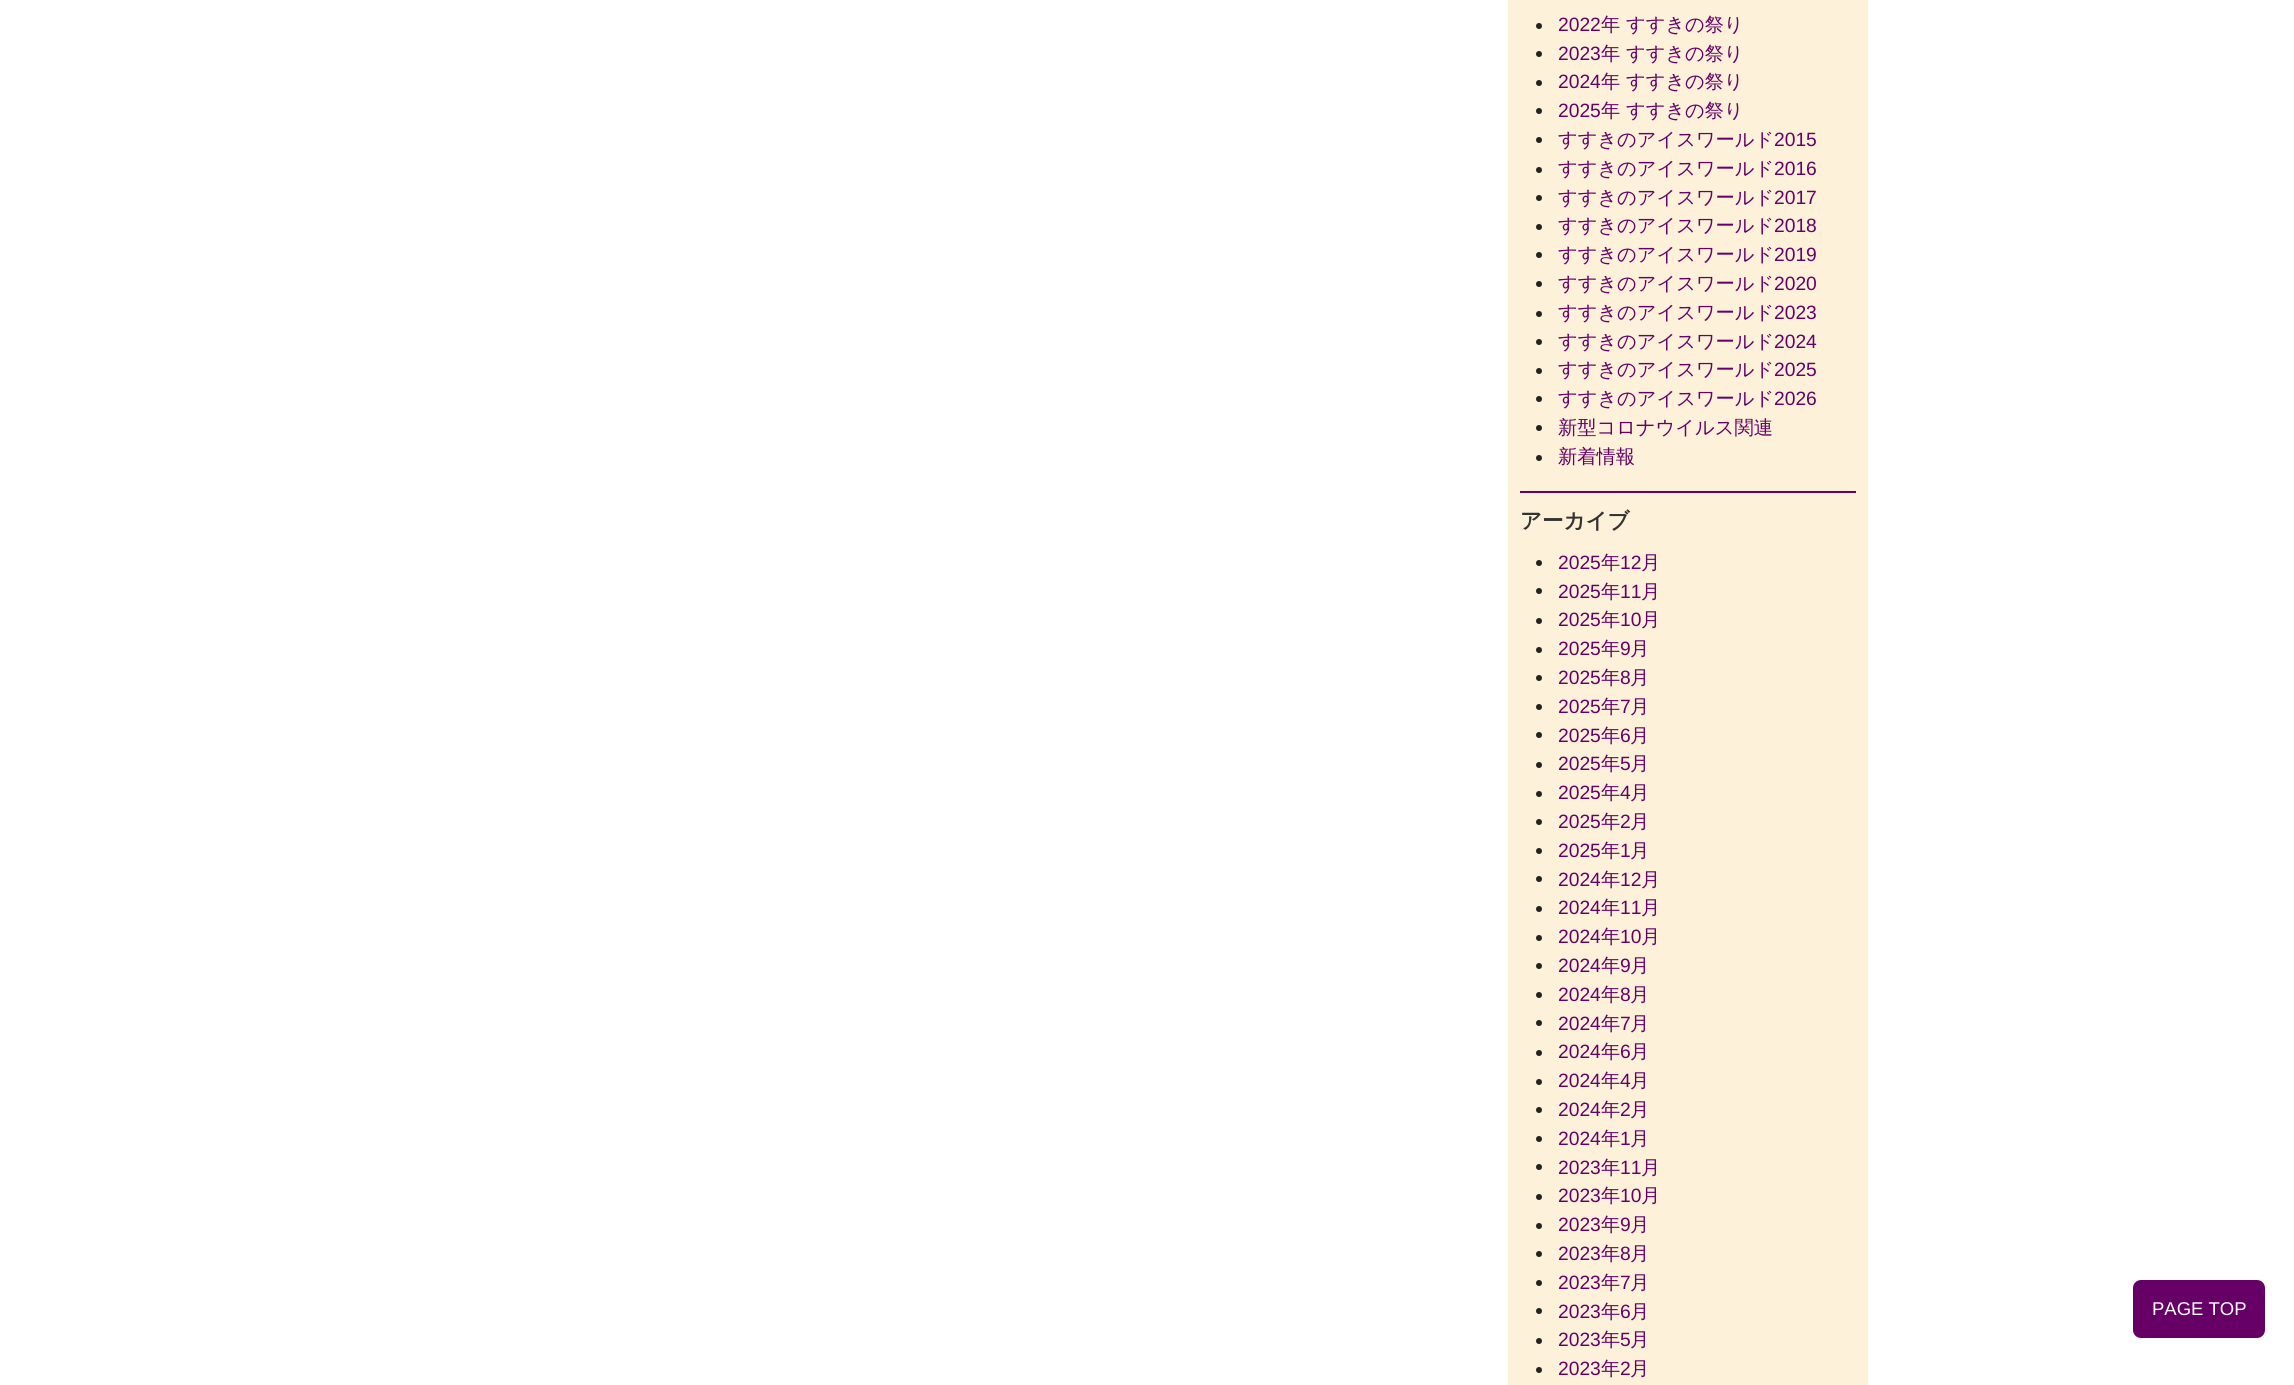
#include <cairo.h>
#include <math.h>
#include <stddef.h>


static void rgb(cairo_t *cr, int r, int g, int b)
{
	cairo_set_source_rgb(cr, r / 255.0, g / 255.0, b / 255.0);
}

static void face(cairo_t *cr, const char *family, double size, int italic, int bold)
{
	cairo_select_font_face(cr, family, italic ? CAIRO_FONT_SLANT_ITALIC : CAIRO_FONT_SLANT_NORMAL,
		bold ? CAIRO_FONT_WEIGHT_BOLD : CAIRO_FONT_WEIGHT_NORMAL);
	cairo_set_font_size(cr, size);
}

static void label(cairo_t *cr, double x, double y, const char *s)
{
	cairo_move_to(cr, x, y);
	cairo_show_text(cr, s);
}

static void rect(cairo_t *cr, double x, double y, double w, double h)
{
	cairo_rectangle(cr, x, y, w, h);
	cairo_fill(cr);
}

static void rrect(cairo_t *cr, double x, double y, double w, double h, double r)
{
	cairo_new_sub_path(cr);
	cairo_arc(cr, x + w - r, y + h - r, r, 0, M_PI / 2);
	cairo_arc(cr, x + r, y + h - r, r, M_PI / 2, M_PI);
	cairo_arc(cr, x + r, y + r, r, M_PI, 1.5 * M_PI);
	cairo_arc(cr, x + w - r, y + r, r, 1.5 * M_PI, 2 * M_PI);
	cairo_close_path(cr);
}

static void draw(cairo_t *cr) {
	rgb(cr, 255, 255, 255);
	cairo_paint(cr);
	rgb(cr, 253, 241, 218);
	rect(cr, 1508, 0, 360, 1385);
	rgb(cr, 34, 34, 34);
	cairo_arc(cr, 1539, 26, 3, 0, 2 * M_PI);
	cairo_fill(cr);
	face(cr, "Liberation Sans", 19.25, 0, 0);
	rgb(cr, 102, 0, 102);
	label(cr, 1558, 31, "2022");
	face(cr, "WenQuanYi Zen Hei Medium", 19.25, 0, 0);
	label(cr, 1601, 31, "年 すすきの祭り");
	rgb(cr, 34, 34, 34);
	cairo_new_path(cr);
	cairo_arc(cr, 1539, 54, 3, 0, 2 * M_PI);
	cairo_fill(cr);
	face(cr, "Liberation Sans", 19.25, 0, 0);
	rgb(cr, 102, 0, 102);
	label(cr, 1558, 60, "2023");
	face(cr, "WenQuanYi Zen Hei Medium", 19.25, 0, 0);
	label(cr, 1601, 60, "年 すすきの祭り");
	rgb(cr, 34, 34, 34);
	cairo_new_path(cr);
	cairo_arc(cr, 1539, 83, 3, 0, 2 * M_PI);
	cairo_fill(cr);
	face(cr, "Liberation Sans", 19.25, 0, 0);
	rgb(cr, 102, 0, 102);
	label(cr, 1558, 88, "2024");
	face(cr, "WenQuanYi Zen Hei Medium", 19.25, 0, 0);
	label(cr, 1601, 88, "年 すすきの祭り");
	rgb(cr, 34, 34, 34);
	cairo_new_path(cr);
	cairo_arc(cr, 1539, 111, 3, 0, 2 * M_PI);
	cairo_fill(cr);
	face(cr, "Liberation Sans", 19.25, 0, 0);
	rgb(cr, 102, 0, 102);
	label(cr, 1558, 117, "2025");
	face(cr, "WenQuanYi Zen Hei Medium", 19.25, 0, 0);
	label(cr, 1601, 117, "年 すすきの祭り");
	rgb(cr, 34, 34, 34);
	cairo_new_path(cr);
	cairo_arc(cr, 1539, 140, 3, 0, 2 * M_PI);
	cairo_fill(cr);
	rgb(cr, 102, 0, 102);
	label(cr, 1558, 146, "すすきのアイスワールド");
	face(cr, "Liberation Sans", 19.25, 0, 0);
	label(cr, 1774, 146, "2015");
	rgb(cr, 34, 34, 34);
	cairo_new_path(cr);
	cairo_arc(cr, 1539, 170, 3, 0, 2 * M_PI);
	cairo_fill(cr);
	face(cr, "WenQuanYi Zen Hei Medium", 19.25, 0, 0);
	rgb(cr, 102, 0, 102);
	label(cr, 1558, 175, "すすきのアイスワールド");
	face(cr, "Liberation Sans", 19.25, 0, 0);
	label(cr, 1774, 175, "2016");
	rgb(cr, 34, 34, 34);
	cairo_new_path(cr);
	cairo_arc(cr, 1539, 198, 3, 0, 2 * M_PI);
	cairo_fill(cr);
	face(cr, "WenQuanYi Zen Hei Medium", 19.25, 0, 0);
	rgb(cr, 102, 0, 102);
	label(cr, 1558, 204, "すすきのアイスワールド");
	face(cr, "Liberation Sans", 19.25, 0, 0);
	label(cr, 1774, 204, "2017");
	rgb(cr, 34, 34, 34);
	cairo_new_path(cr);
	cairo_arc(cr, 1539, 227, 3, 0, 2 * M_PI);
	cairo_fill(cr);
	face(cr, "WenQuanYi Zen Hei Medium", 19.25, 0, 0);
	rgb(cr, 102, 0, 102);
	label(cr, 1558, 232, "すすきのアイスワールド");
	face(cr, "Liberation Sans", 19.25, 0, 0);
	label(cr, 1774, 232, "2018");
	rgb(cr, 34, 34, 34);
	cairo_new_path(cr);
	cairo_arc(cr, 1539, 255, 3, 0, 2 * M_PI);
	cairo_fill(cr);
	face(cr, "WenQuanYi Zen Hei Medium", 19.25, 0, 0);
	rgb(cr, 102, 0, 102);
	label(cr, 1558, 261, "すすきのアイスワールド");
	face(cr, "Liberation Sans", 19.25, 0, 0);
	label(cr, 1774, 261, "2019");
	rgb(cr, 34, 34, 34);
	cairo_new_path(cr);
	cairo_arc(cr, 1539, 284, 3, 0, 2 * M_PI);
	cairo_fill(cr);
	face(cr, "WenQuanYi Zen Hei Medium", 19.25, 0, 0);
	rgb(cr, 102, 0, 102);
	label(cr, 1558, 290, "すすきのアイスワールド");
	face(cr, "Liberation Sans", 19.25, 0, 0);
	label(cr, 1774, 290, "2020");
	rgb(cr, 34, 34, 34);
	cairo_new_path(cr);
	cairo_arc(cr, 1539, 314, 3, 0, 2 * M_PI);
	cairo_fill(cr);
	face(cr, "WenQuanYi Zen Hei Medium", 19.25, 0, 0);
	rgb(cr, 102, 0, 102);
	label(cr, 1558, 319, "すすきのアイスワールド");
	face(cr, "Liberation Sans", 19.25, 0, 0);
	label(cr, 1774, 319, "2023");
	rgb(cr, 34, 34, 34);
	cairo_new_path(cr);
	cairo_arc(cr, 1539, 342, 3, 0, 2 * M_PI);
	cairo_fill(cr);
	face(cr, "WenQuanYi Zen Hei Medium", 19.25, 0, 0);
	rgb(cr, 102, 0, 102);
	label(cr, 1558, 348, "すすきのアイスワールド");
	face(cr, "Liberation Sans", 19.25, 0, 0);
	label(cr, 1774, 348, "2024");
	rgb(cr, 34, 34, 34);
	cairo_new_path(cr);
	cairo_arc(cr, 1539, 371, 3, 0, 2 * M_PI);
	cairo_fill(cr);
	face(cr, "WenQuanYi Zen Hei Medium", 19.25, 0, 0);
	rgb(cr, 102, 0, 102);
	label(cr, 1558, 376, "すすきのアイスワールド");
	face(cr, "Liberation Sans", 19.25, 0, 0);
	label(cr, 1774, 376, "2025");
	rgb(cr, 34, 34, 34);
	cairo_new_path(cr);
	cairo_arc(cr, 1539, 399, 3, 0, 2 * M_PI);
	cairo_fill(cr);
	face(cr, "WenQuanYi Zen Hei Medium", 19.25, 0, 0);
	rgb(cr, 102, 0, 102);
	label(cr, 1558, 405, "すすきのアイスワールド");
	face(cr, "Liberation Sans", 19.25, 0, 0);
	label(cr, 1774, 405, "2026");
	rgb(cr, 34, 34, 34);
	cairo_new_path(cr);
	cairo_arc(cr, 1539, 428, 3, 0, 2 * M_PI);
	cairo_fill(cr);
	face(cr, "WenQuanYi Zen Hei Medium", 19.25, 0, 0);
	rgb(cr, 102, 0, 102);
	label(cr, 1558, 434, "新型コロナウイルス関連");
	rgb(cr, 34, 34, 34);
	cairo_new_path(cr);
	cairo_arc(cr, 1539, 458, 3, 0, 2 * M_PI);
	cairo_fill(cr);
	rgb(cr, 102, 0, 102);
	label(cr, 1558, 463, "新着情報");
	rect(cr, 1520, 491, 336, 2);
	face(cr, "WenQuanYi Zen Hei", 21.5, 0, 1);
	rgb(cr, 51, 51, 51);
	label(cr, 1520, 528, "アーカイブ");
	rgb(cr, 34, 34, 34);
	cairo_new_path(cr);
	cairo_arc(cr, 1539, 563, 3, 0, 2 * M_PI);
	cairo_fill(cr);
	face(cr, "Liberation Sans", 19.25, 0, 0);
	rgb(cr, 102, 0, 102);
	label(cr, 1558, 569, "2025");
	face(cr, "WenQuanYi Zen Hei Medium", 19.25, 0, 0);
	label(cr, 1601, 569, "年");
	face(cr, "Liberation Sans", 19.25, 0, 0);
	label(cr, 1620, 569, "12");
	face(cr, "WenQuanYi Zen Hei Medium", 19.25, 0, 0);
	label(cr, 1641, 569, "月");
	rgb(cr, 34, 34, 34);
	cairo_new_path(cr);
	cairo_arc(cr, 1539, 591, 3, 0, 2 * M_PI);
	cairo_fill(cr);
	face(cr, "Liberation Sans", 19.25, 0, 0);
	rgb(cr, 102, 0, 102);
	label(cr, 1558, 598, "2025");
	face(cr, "WenQuanYi Zen Hei Medium", 19.25, 0, 0);
	label(cr, 1601, 598, "年");
	face(cr, "Liberation Sans", 19.25, 0, 0);
	label(cr, 1620, 598, "11");
	face(cr, "WenQuanYi Zen Hei Medium", 19.25, 0, 0);
	label(cr, 1641, 598, "月");
	rgb(cr, 34, 34, 34);
	cairo_new_path(cr);
	cairo_arc(cr, 1539, 621, 3, 0, 2 * M_PI);
	cairo_fill(cr);
	face(cr, "Liberation Sans", 19.25, 0, 0);
	rgb(cr, 102, 0, 102);
	label(cr, 1558, 626, "2025");
	face(cr, "WenQuanYi Zen Hei Medium", 19.25, 0, 0);
	label(cr, 1601, 626, "年");
	face(cr, "Liberation Sans", 19.25, 0, 0);
	label(cr, 1620, 626, "10");
	face(cr, "WenQuanYi Zen Hei Medium", 19.25, 0, 0);
	label(cr, 1641, 626, "月");
	rgb(cr, 34, 34, 34);
	cairo_new_path(cr);
	cairo_arc(cr, 1539, 650, 3, 0, 2 * M_PI);
	cairo_fill(cr);
	face(cr, "Liberation Sans", 19.25, 0, 0);
	rgb(cr, 102, 0, 102);
	label(cr, 1558, 655, "2025");
	face(cr, "WenQuanYi Zen Hei Medium", 19.25, 0, 0);
	label(cr, 1601, 655, "年");
	face(cr, "Liberation Sans", 19.25, 0, 0);
	label(cr, 1620, 655, "9");
	face(cr, "WenQuanYi Zen Hei Medium", 19.25, 0, 0);
	label(cr, 1630, 655, "月");
	rgb(cr, 34, 34, 34);
	cairo_new_path(cr);
	cairo_arc(cr, 1539, 678, 3, 0, 2 * M_PI);
	cairo_fill(cr);
	face(cr, "Liberation Sans", 19.25, 0, 0);
	rgb(cr, 102, 0, 102);
	label(cr, 1558, 684, "2025");
	face(cr, "WenQuanYi Zen Hei Medium", 19.25, 0, 0);
	label(cr, 1601, 684, "年");
	face(cr, "Liberation Sans", 19.25, 0, 0);
	label(cr, 1620, 684, "8");
	face(cr, "WenQuanYi Zen Hei Medium", 19.25, 0, 0);
	label(cr, 1630, 684, "月");
	rgb(cr, 34, 34, 34);
	cairo_new_path(cr);
	cairo_arc(cr, 1539, 707, 3, 0, 2 * M_PI);
	cairo_fill(cr);
	face(cr, "Liberation Sans", 19.25, 0, 0);
	rgb(cr, 102, 0, 102);
	label(cr, 1558, 713, "2025");
	face(cr, "WenQuanYi Zen Hei Medium", 19.25, 0, 0);
	label(cr, 1601, 713, "年");
	face(cr, "Liberation Sans", 19.25, 0, 0);
	label(cr, 1620, 713, "7");
	face(cr, "WenQuanYi Zen Hei Medium", 19.25, 0, 0);
	label(cr, 1630, 713, "月");
	rgb(cr, 34, 34, 34);
	cairo_new_path(cr);
	cairo_arc(cr, 1539, 735, 3, 0, 2 * M_PI);
	cairo_fill(cr);
	face(cr, "Liberation Sans", 19.25, 0, 0);
	rgb(cr, 102, 0, 102);
	label(cr, 1558, 742, "2025");
	face(cr, "WenQuanYi Zen Hei Medium", 19.25, 0, 0);
	label(cr, 1601, 742, "年");
	face(cr, "Liberation Sans", 19.25, 0, 0);
	label(cr, 1620, 742, "6");
	face(cr, "WenQuanYi Zen Hei Medium", 19.25, 0, 0);
	label(cr, 1630, 742, "月");
	rgb(cr, 34, 34, 34);
	cairo_new_path(cr);
	cairo_arc(cr, 1539, 765, 3, 0, 2 * M_PI);
	cairo_fill(cr);
	face(cr, "Liberation Sans", 19.25, 0, 0);
	rgb(cr, 102, 0, 102);
	label(cr, 1558, 770, "2025");
	face(cr, "WenQuanYi Zen Hei Medium", 19.25, 0, 0);
	label(cr, 1601, 770, "年");
	face(cr, "Liberation Sans", 19.25, 0, 0);
	label(cr, 1620, 770, "5");
	face(cr, "WenQuanYi Zen Hei Medium", 19.25, 0, 0);
	label(cr, 1630, 770, "月");
	rgb(cr, 34, 34, 34);
	cairo_new_path(cr);
	cairo_arc(cr, 1539, 794, 3, 0, 2 * M_PI);
	cairo_fill(cr);
	face(cr, "Liberation Sans", 19.25, 0, 0);
	rgb(cr, 102, 0, 102);
	label(cr, 1558, 799, "2025");
	face(cr, "WenQuanYi Zen Hei Medium", 19.25, 0, 0);
	label(cr, 1601, 799, "年");
	face(cr, "Liberation Sans", 19.25, 0, 0);
	label(cr, 1620, 799, "4");
	face(cr, "WenQuanYi Zen Hei Medium", 19.25, 0, 0);
	label(cr, 1630, 799, "月");
	rgb(cr, 34, 34, 34);
	cairo_new_path(cr);
	cairo_arc(cr, 1539, 822, 3, 0, 2 * M_PI);
	cairo_fill(cr);
	face(cr, "Liberation Sans", 19.25, 0, 0);
	rgb(cr, 102, 0, 102);
	label(cr, 1558, 828, "2025");
	face(cr, "WenQuanYi Zen Hei Medium", 19.25, 0, 0);
	label(cr, 1601, 828, "年");
	face(cr, "Liberation Sans", 19.25, 0, 0);
	label(cr, 1620, 828, "2");
	face(cr, "WenQuanYi Zen Hei Medium", 19.25, 0, 0);
	label(cr, 1630, 828, "月");
	rgb(cr, 34, 34, 34);
	cairo_new_path(cr);
	cairo_arc(cr, 1539, 851, 3, 0, 2 * M_PI);
	cairo_fill(cr);
	face(cr, "Liberation Sans", 19.25, 0, 0);
	rgb(cr, 102, 0, 102);
	label(cr, 1558, 857, "2025");
	face(cr, "WenQuanYi Zen Hei Medium", 19.25, 0, 0);
	label(cr, 1601, 857, "年");
	face(cr, "Liberation Sans", 19.25, 0, 0);
	label(cr, 1620, 857, "1");
	face(cr, "WenQuanYi Zen Hei Medium", 19.25, 0, 0);
	label(cr, 1630, 857, "月");
	rgb(cr, 34, 34, 34);
	cairo_new_path(cr);
	cairo_arc(cr, 1539, 879, 3, 0, 2 * M_PI);
	cairo_fill(cr);
	face(cr, "Liberation Sans", 19.25, 0, 0);
	rgb(cr, 102, 0, 102);
	label(cr, 1558, 886, "2024");
	face(cr, "WenQuanYi Zen Hei Medium", 19.25, 0, 0);
	label(cr, 1601, 886, "年");
	face(cr, "Liberation Sans", 19.25, 0, 0);
	label(cr, 1620, 886, "12");
	face(cr, "WenQuanYi Zen Hei Medium", 19.25, 0, 0);
	label(cr, 1641, 886, "月");
	rgb(cr, 34, 34, 34);
	cairo_new_path(cr);
	cairo_arc(cr, 1539, 909, 3, 0, 2 * M_PI);
	cairo_fill(cr);
	face(cr, "Liberation Sans", 19.25, 0, 0);
	rgb(cr, 102, 0, 102);
	label(cr, 1558, 914, "2024");
	face(cr, "WenQuanYi Zen Hei Medium", 19.25, 0, 0);
	label(cr, 1601, 914, "年");
	face(cr, "Liberation Sans", 19.25, 0, 0);
	label(cr, 1620, 914, "11");
	face(cr, "WenQuanYi Zen Hei Medium", 19.25, 0, 0);
	label(cr, 1641, 914, "月");
	rgb(cr, 34, 34, 34);
	cairo_new_path(cr);
	cairo_arc(cr, 1539, 938, 3, 0, 2 * M_PI);
	cairo_fill(cr);
	face(cr, "Liberation Sans", 19.25, 0, 0);
	rgb(cr, 102, 0, 102);
	label(cr, 1558, 943, "2024");
	face(cr, "WenQuanYi Zen Hei Medium", 19.25, 0, 0);
	label(cr, 1601, 943, "年");
	face(cr, "Liberation Sans", 19.25, 0, 0);
	label(cr, 1620, 943, "10");
	face(cr, "WenQuanYi Zen Hei Medium", 19.25, 0, 0);
	label(cr, 1641, 943, "月");
	rgb(cr, 34, 34, 34);
	cairo_new_path(cr);
	cairo_arc(cr, 1539, 966, 3, 0, 2 * M_PI);
	cairo_fill(cr);
	face(cr, "Liberation Sans", 19.25, 0, 0);
	rgb(cr, 102, 0, 102);
	label(cr, 1558, 972, "2024");
	face(cr, "WenQuanYi Zen Hei Medium", 19.25, 0, 0);
	label(cr, 1601, 972, "年");
	face(cr, "Liberation Sans", 19.25, 0, 0);
	label(cr, 1620, 972, "9");
	face(cr, "WenQuanYi Zen Hei Medium", 19.25, 0, 0);
	label(cr, 1630, 972, "月");
	rgb(cr, 34, 34, 34);
	cairo_new_path(cr);
	cairo_arc(cr, 1539, 995, 3, 0, 2 * M_PI);
	cairo_fill(cr);
	face(cr, "Liberation Sans", 19.25, 0, 0);
	rgb(cr, 102, 0, 102);
	label(cr, 1558, 1001, "2024");
	face(cr, "WenQuanYi Zen Hei Medium", 19.25, 0, 0);
	label(cr, 1601, 1001, "年");
	face(cr, "Liberation Sans", 19.25, 0, 0);
	label(cr, 1620, 1001, "8");
	face(cr, "WenQuanYi Zen Hei Medium", 19.25, 0, 0);
	label(cr, 1630, 1001, "月");
	rgb(cr, 34, 34, 34);
	cairo_new_path(cr);
	cairo_arc(cr, 1539, 1023, 3, 0, 2 * M_PI);
	cairo_fill(cr);
	face(cr, "Liberation Sans", 19.25, 0, 0);
	rgb(cr, 102, 0, 102);
	label(cr, 1558, 1030, "2024");
	face(cr, "WenQuanYi Zen Hei Medium", 19.25, 0, 0);
	label(cr, 1601, 1030, "年");
	face(cr, "Liberation Sans", 19.25, 0, 0);
	label(cr, 1620, 1030, "7");
	face(cr, "WenQuanYi Zen Hei Medium", 19.25, 0, 0);
	label(cr, 1630, 1030, "月");
	rgb(cr, 34, 34, 34);
	cairo_new_path(cr);
	cairo_arc(cr, 1539, 1053, 3, 0, 2 * M_PI);
	cairo_fill(cr);
	face(cr, "Liberation Sans", 19.25, 0, 0);
	rgb(cr, 102, 0, 102);
	label(cr, 1558, 1058, "2024");
	face(cr, "WenQuanYi Zen Hei Medium", 19.25, 0, 0);
	label(cr, 1601, 1058, "年");
	face(cr, "Liberation Sans", 19.25, 0, 0);
	label(cr, 1620, 1058, "6");
	face(cr, "WenQuanYi Zen Hei Medium", 19.25, 0, 0);
	label(cr, 1630, 1058, "月");
	rgb(cr, 34, 34, 34);
	cairo_new_path(cr);
	cairo_arc(cr, 1539, 1082, 3, 0, 2 * M_PI);
	cairo_fill(cr);
	face(cr, "Liberation Sans", 19.25, 0, 0);
	rgb(cr, 102, 0, 102);
	label(cr, 1558, 1087, "2024");
	face(cr, "WenQuanYi Zen Hei Medium", 19.25, 0, 0);
	label(cr, 1601, 1087, "年");
	face(cr, "Liberation Sans", 19.25, 0, 0);
	label(cr, 1620, 1087, "4");
	face(cr, "WenQuanYi Zen Hei Medium", 19.25, 0, 0);
	label(cr, 1630, 1087, "月");
	rgb(cr, 34, 34, 34);
	cairo_new_path(cr);
	cairo_arc(cr, 1539, 1110, 3, 0, 2 * M_PI);
	cairo_fill(cr);
	face(cr, "Liberation Sans", 19.25, 0, 0);
	rgb(cr, 102, 0, 102);
	label(cr, 1558, 1116, "2024");
	face(cr, "WenQuanYi Zen Hei Medium", 19.25, 0, 0);
	label(cr, 1601, 1116, "年");
	face(cr, "Liberation Sans", 19.25, 0, 0);
	label(cr, 1620, 1116, "2");
	face(cr, "WenQuanYi Zen Hei Medium", 19.25, 0, 0);
	label(cr, 1630, 1116, "月");
	rgb(cr, 34, 34, 34);
	cairo_new_path(cr);
	cairo_arc(cr, 1539, 1139, 3, 0, 2 * M_PI);
	cairo_fill(cr);
	face(cr, "Liberation Sans", 19.25, 0, 0);
	rgb(cr, 102, 0, 102);
	label(cr, 1558, 1145, "2024");
	face(cr, "WenQuanYi Zen Hei Medium", 19.25, 0, 0);
	label(cr, 1601, 1145, "年");
	face(cr, "Liberation Sans", 19.25, 0, 0);
	label(cr, 1620, 1145, "1");
	face(cr, "WenQuanYi Zen Hei Medium", 19.25, 0, 0);
	label(cr, 1630, 1145, "月");
	rgb(cr, 34, 34, 34);
	cairo_new_path(cr);
	cairo_arc(cr, 1539, 1167, 3, 0, 2 * M_PI);
	cairo_fill(cr);
	face(cr, "Liberation Sans", 19.25, 0, 0);
	rgb(cr, 102, 0, 102);
	label(cr, 1558, 1174, "2023");
	face(cr, "WenQuanYi Zen Hei Medium", 19.25, 0, 0);
	label(cr, 1601, 1174, "年");
	face(cr, "Liberation Sans", 19.25, 0, 0);
	label(cr, 1620, 1174, "11");
	face(cr, "WenQuanYi Zen Hei Medium", 19.25, 0, 0);
	label(cr, 1641, 1174, "月");
	rgb(cr, 34, 34, 34);
	cairo_new_path(cr);
	cairo_arc(cr, 1539, 1197, 3, 0, 2 * M_PI);
	cairo_fill(cr);
	face(cr, "Liberation Sans", 19.25, 0, 0);
	rgb(cr, 102, 0, 102);
	label(cr, 1558, 1202, "2023");
	face(cr, "WenQuanYi Zen Hei Medium", 19.25, 0, 0);
	label(cr, 1601, 1202, "年");
	face(cr, "Liberation Sans", 19.25, 0, 0);
	label(cr, 1620, 1202, "10");
	face(cr, "WenQuanYi Zen Hei Medium", 19.25, 0, 0);
	label(cr, 1641, 1202, "月");
	rgb(cr, 34, 34, 34);
	cairo_new_path(cr);
	cairo_arc(cr, 1539, 1226, 3, 0, 2 * M_PI);
	cairo_fill(cr);
	face(cr, "Liberation Sans", 19.25, 0, 0);
	rgb(cr, 102, 0, 102);
	label(cr, 1558, 1231, "2023");
	face(cr, "WenQuanYi Zen Hei Medium", 19.25, 0, 0);
	label(cr, 1601, 1231, "年");
	face(cr, "Liberation Sans", 19.25, 0, 0);
	label(cr, 1620, 1231, "9");
	face(cr, "WenQuanYi Zen Hei Medium", 19.25, 0, 0);
	label(cr, 1630, 1231, "月");
	rgb(cr, 34, 34, 34);
	cairo_new_path(cr);
	cairo_arc(cr, 1539, 1254, 3, 0, 2 * M_PI);
	cairo_fill(cr);
	face(cr, "Liberation Sans", 19.25, 0, 0);
	rgb(cr, 102, 0, 102);
	label(cr, 1558, 1260, "2023");
	face(cr, "WenQuanYi Zen Hei Medium", 19.25, 0, 0);
	label(cr, 1601, 1260, "年");
	face(cr, "Liberation Sans", 19.25, 0, 0);
	label(cr, 1620, 1260, "8");
	face(cr, "WenQuanYi Zen Hei Medium", 19.25, 0, 0);
	label(cr, 1630, 1260, "月");
	rgb(cr, 34, 34, 34);
	cairo_new_path(cr);
	cairo_arc(cr, 1539, 1283, 3, 0, 2 * M_PI);
	cairo_fill(cr);
	face(cr, "Liberation Sans", 19.25, 0, 0);
	rgb(cr, 102, 0, 102);
	label(cr, 1558, 1289, "2023");
	face(cr, "WenQuanYi Zen Hei Medium", 19.25, 0, 0);
	label(cr, 1601, 1289, "年");
	face(cr, "Liberation Sans", 19.25, 0, 0);
	label(cr, 1620, 1289, "7");
	face(cr, "WenQuanYi Zen Hei Medium", 19.25, 0, 0);
	label(cr, 1630, 1289, "月");
	rgb(cr, 34, 34, 34);
	cairo_new_path(cr);
	cairo_arc(cr, 1539, 1311, 3, 0, 2 * M_PI);
	cairo_fill(cr);
	face(cr, "Liberation Sans", 19.25, 0, 0);
	rgb(cr, 102, 0, 102);
	label(cr, 1558, 1318, "2023");
	face(cr, "WenQuanYi Zen Hei Medium", 19.25, 0, 0);
	label(cr, 1601, 1318, "年");
	face(cr, "Liberation Sans", 19.25, 0, 0);
	label(cr, 1620, 1318, "6");
	face(cr, "WenQuanYi Zen Hei Medium", 19.25, 0, 0);
	label(cr, 1630, 1318, "月");
	rgb(cr, 34, 34, 34);
	cairo_new_path(cr);
	cairo_arc(cr, 1539, 1341, 3, 0, 2 * M_PI);
	cairo_fill(cr);
	face(cr, "Liberation Sans", 19.25, 0, 0);
	rgb(cr, 102, 0, 102);
	label(cr, 1558, 1346, "2023");
	face(cr, "WenQuanYi Zen Hei Medium", 19.25, 0, 0);
	label(cr, 1601, 1346, "年");
	face(cr, "Liberation Sans", 19.25, 0, 0);
	label(cr, 1620, 1346, "5");
	face(cr, "WenQuanYi Zen Hei Medium", 19.25, 0, 0);
	label(cr, 1630, 1346, "月");
	rgb(cr, 34, 34, 34);
	cairo_new_path(cr);
	cairo_arc(cr, 1539, 1370, 3, 0, 2 * M_PI);
	cairo_fill(cr);
	face(cr, "Liberation Sans", 19.25, 0, 0);
	rgb(cr, 102, 0, 102);
	label(cr, 1558, 1375, "2023");
	face(cr, "WenQuanYi Zen Hei Medium", 19.25, 0, 0);
	label(cr, 1601, 1375, "年");
	face(cr, "Liberation Sans", 19.25, 0, 0);
	label(cr, 1620, 1375, "2");
	face(cr, "WenQuanYi Zen Hei Medium", 19.25, 0, 0);
	label(cr, 1630, 1375, "月");
	rrect(cr, 2133, 1280, 132, 58, 8);
	cairo_fill(cr);
	face(cr, "Liberation Sans", 18.5, 0, 0);
	rgb(cr, 255, 255, 255);
	label(cr, 2152, 1315, "PAGE TOP");
}

int main(void) {
	cairo_surface_t *surface = cairo_image_surface_create(CAIRO_FORMAT_RGB24, 2294, 1385);
	cairo_t *cr = cairo_create(surface);
	cairo_font_options_t *options = cairo_font_options_create();
	cairo_font_options_set_hint_metrics(options, CAIRO_HINT_METRICS_OFF);
	cairo_font_options_set_hint_style(options, CAIRO_HINT_STYLE_NONE);
	cairo_set_font_options(cr, options);
	cairo_set_miter_limit(cr, 4);
	draw(cr);
	cairo_surface_write_to_png(surface, "render.png");
	cairo_font_options_destroy(options);
	cairo_destroy(cr);
	cairo_surface_destroy(surface);
	return 0;
}
